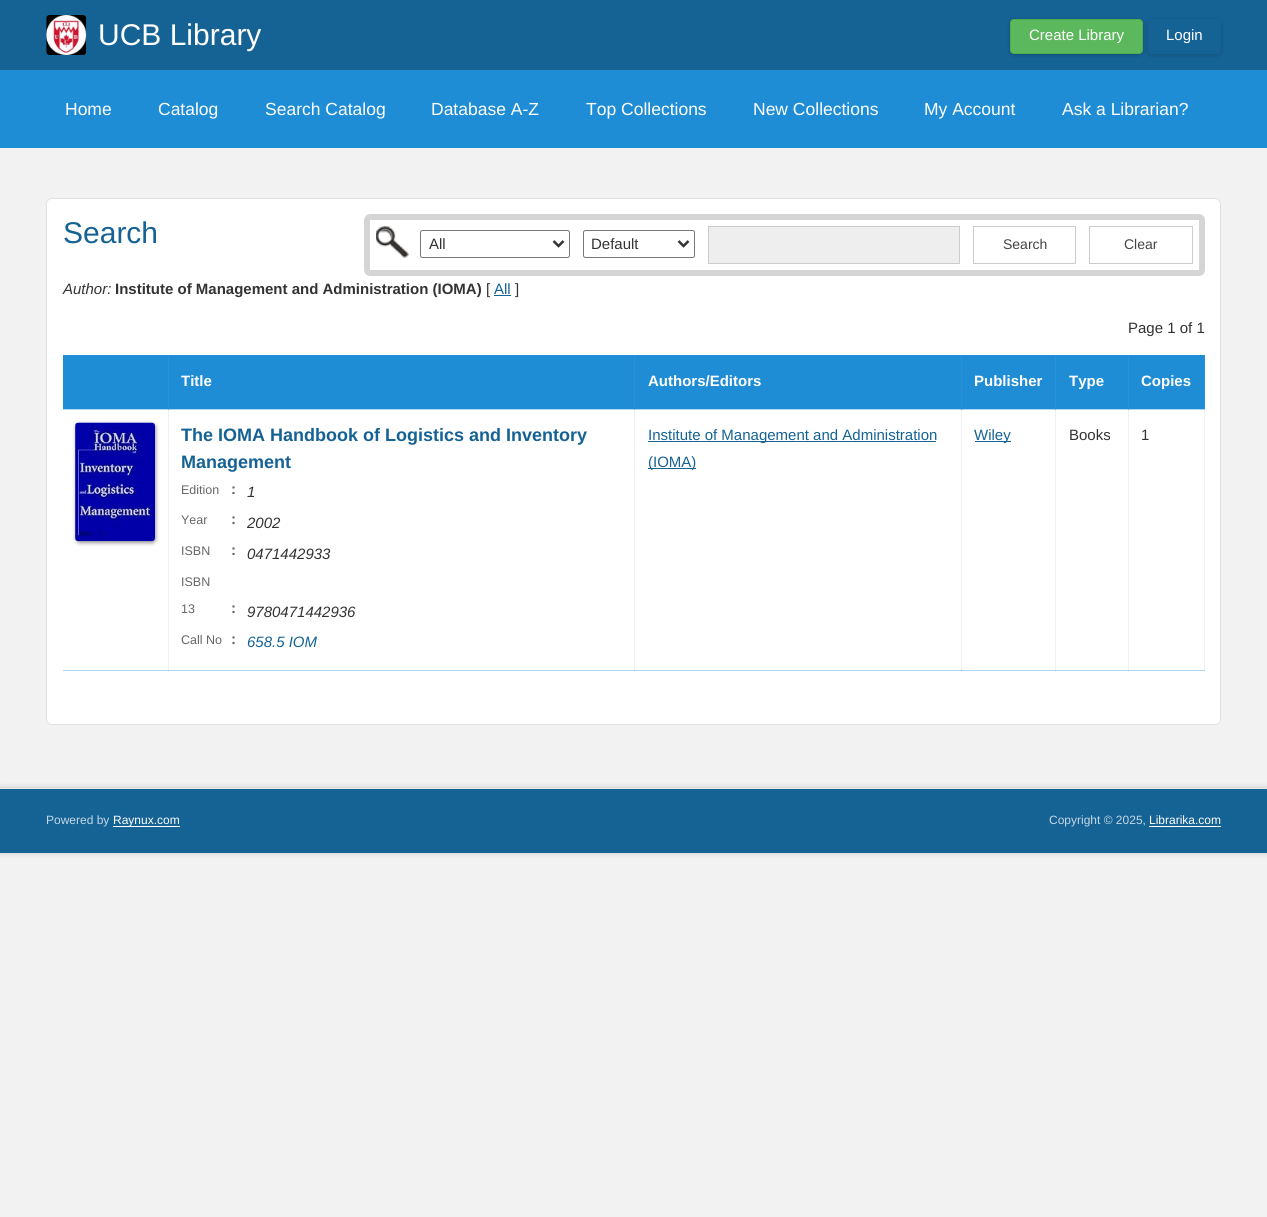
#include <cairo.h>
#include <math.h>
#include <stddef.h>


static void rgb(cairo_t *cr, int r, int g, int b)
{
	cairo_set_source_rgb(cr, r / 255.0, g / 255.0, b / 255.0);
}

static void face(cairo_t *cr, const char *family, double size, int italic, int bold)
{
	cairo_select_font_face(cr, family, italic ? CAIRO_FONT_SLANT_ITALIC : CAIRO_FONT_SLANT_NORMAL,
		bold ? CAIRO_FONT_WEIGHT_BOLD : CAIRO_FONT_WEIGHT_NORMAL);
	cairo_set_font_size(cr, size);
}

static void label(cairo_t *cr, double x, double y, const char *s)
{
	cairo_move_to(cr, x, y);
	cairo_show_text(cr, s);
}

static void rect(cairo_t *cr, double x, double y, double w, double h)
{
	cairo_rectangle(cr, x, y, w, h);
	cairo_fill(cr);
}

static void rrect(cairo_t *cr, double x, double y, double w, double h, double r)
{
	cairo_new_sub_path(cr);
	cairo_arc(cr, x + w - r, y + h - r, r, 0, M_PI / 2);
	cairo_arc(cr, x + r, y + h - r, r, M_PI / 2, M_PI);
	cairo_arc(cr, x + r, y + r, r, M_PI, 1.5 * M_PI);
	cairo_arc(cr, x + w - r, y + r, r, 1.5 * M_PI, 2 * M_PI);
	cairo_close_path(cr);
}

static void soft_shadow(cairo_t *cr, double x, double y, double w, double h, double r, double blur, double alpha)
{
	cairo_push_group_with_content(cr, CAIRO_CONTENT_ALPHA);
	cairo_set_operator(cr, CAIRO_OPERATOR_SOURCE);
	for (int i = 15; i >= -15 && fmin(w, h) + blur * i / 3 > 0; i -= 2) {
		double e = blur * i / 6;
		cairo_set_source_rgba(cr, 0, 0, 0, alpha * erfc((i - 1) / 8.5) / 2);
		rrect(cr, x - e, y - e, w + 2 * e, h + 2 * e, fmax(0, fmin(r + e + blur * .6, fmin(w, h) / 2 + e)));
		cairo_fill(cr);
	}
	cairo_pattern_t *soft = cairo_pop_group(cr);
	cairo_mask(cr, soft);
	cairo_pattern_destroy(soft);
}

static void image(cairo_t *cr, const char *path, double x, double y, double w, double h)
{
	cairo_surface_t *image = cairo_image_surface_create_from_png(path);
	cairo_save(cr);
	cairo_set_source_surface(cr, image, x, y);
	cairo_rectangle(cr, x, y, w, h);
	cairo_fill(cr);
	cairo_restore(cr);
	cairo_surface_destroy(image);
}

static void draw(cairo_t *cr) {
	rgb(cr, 242, 242, 242);
	cairo_paint(cr);
	rgb(cr, 21, 98, 149);
	rect(cr, 0, 0, 1267, 70);
	image(cr, "image0.png", 46, 15, 41, 40);
	face(cr, "Liberation Sans", 30, 0, 0);
	rgb(cr, 255, 255, 255);
	label(cr, 98, 45, "UCB Library");
	rgb(cr, 0, 0, 0);
	soft_shadow(cr, 1010, 20, 133, 35, 4, 2, 0.2);
	rgb(cr, 92, 184, 92);
	rrect(cr, 1010.5, 19.5, 132, 34, 3.5);
	cairo_fill_preserve(cr);
	rgb(cr, 76, 174, 76);
	cairo_set_line_width(cr, 1);
	cairo_stroke(cr);
	face(cr, "Liberation Sans", 15, 0, 0);
	rgb(cr, 255, 255, 255);
	label(cr, 1029, 40, "Create Library");
	rgb(cr, 0, 0, 0);
	soft_shadow(cr, 1148, 20, 73, 35, 4, 2, 0.2);
	rgb(cr, 21, 98, 149);
	rrect(cr, 1148.5, 19.5, 72, 34, 3.5);
	cairo_fill_preserve(cr);
	cairo_stroke(cr);
	rgb(cr, 255, 255, 255);
	label(cr, 1166, 40, "Login");
	rgb(cr, 31, 141, 214);
	rect(cr, 0, 70, 1267, 78);
	face(cr, "Liberation Sans", 17.5, 0, 0);
	rgb(cr, 255, 255, 255);
	label(cr, 65, 115, "Home");
	label(cr, 158, 115, "Catalog");
	label(cr, 265, 115, "Search Catalog");
	label(cr, 431, 115, "Database A-Z");
	label(cr, 586, 115, "Top Collections");
	label(cr, 753, 115, "New Collections");
	label(cr, 924, 115, "My Account");
	label(cr, 1062, 115, "Ask a Librarian?");
	rrect(cr, 46, 198, 1175, 527, 6);
	cairo_fill(cr);
	rgb(cr, 177, 215, 241);
	rect(cr, 63, 409, 1142, 1);
	rgb(cr, 126, 189, 232);
	rect(cr, 961, 409, 2, 1);
	rgb(cr, 177, 215, 241);
	rect(cr, 63, 670, 106, 1);
	rgb(cr, 240, 240, 240);
	rect(cr, 168, 409, 1, 262);
	rgb(cr, 121, 183, 225);
	rect(cr, 168, 409, 1, 1);
	rgb(cr, 177, 215, 241);
	rect(cr, 168, 670, 467, 1);
	rgb(cr, 149, 196, 228);
	rect(cr, 168, 670, 1, 1);
	rgb(cr, 240, 240, 240);
	rect(cr, 634, 409, 1, 262);
	rgb(cr, 121, 183, 225);
	rect(cr, 634, 409, 1, 1);
	rgb(cr, 177, 215, 241);
	rect(cr, 634, 670, 329, 1);
	rgb(cr, 149, 196, 228);
	rect(cr, 634, 670, 1, 1);
	rgb(cr, 240, 240, 240);
	rect(cr, 961, 409, 1, 262);
	rgb(cr, 121, 183, 225);
	rect(cr, 961, 409, 1, 1);
	rgb(cr, 177, 215, 241);
	rect(cr, 961, 670, 95, 1);
	rgb(cr, 126, 189, 232);
	rect(cr, 961, 670, 2, 1);
	rgb(cr, 149, 196, 228);
	rect(cr, 961, 670, 1, 1);
	rgb(cr, 240, 240, 240);
	rect(cr, 1055, 409, 1, 262);
	rgb(cr, 121, 183, 225);
	rect(cr, 1055, 409, 1, 1);
	rgb(cr, 177, 215, 241);
	rect(cr, 1055, 670, 74, 1);
	rgb(cr, 149, 196, 228);
	rect(cr, 1055, 670, 1, 1);
	rgb(cr, 240, 240, 240);
	rect(cr, 1128, 409, 1, 262);
	rgb(cr, 121, 183, 225);
	rect(cr, 1128, 409, 1, 1);
	rgb(cr, 177, 215, 241);
	rect(cr, 1128, 670, 77, 1);
	rgb(cr, 149, 196, 228);
	rect(cr, 1128, 670, 1, 1);
	rrect(cr, 46.5, 198.5, 1174, 526, 5.5);
	rgb(cr, 224, 224, 224);
	cairo_stroke(cr);
	face(cr, "Liberation Sans", 30, 0, 0);
	rgb(cr, 21, 98, 149);
	label(cr, 63, 243, "Search");
	rrect(cr, 367, 217, 835, 56, 3);
	rgb(cr, 213, 213, 213);
	cairo_set_line_width(cr, 6);
	cairo_stroke(cr);
	image(cr, "image1.png", 376, 226, 33, 33);
	rrect(cr, 420.5, 230.5, 149, 27, 2);
	rgb(cr, 118, 118, 118);
	cairo_set_line_width(cr, 1);
	cairo_stroke(cr);
	cairo_new_path(cr);
	cairo_move_to(cr, 553.5, 241);
	cairo_line_to(cr, 558.5, 246);
	cairo_line_to(cr, 563.5, 241);
	rgb(cr, 51, 51, 51);
	cairo_set_line_width(cr, 2.5);
	cairo_stroke(cr);
	face(cr, "Liberation Sans", 15, 0, 0);
	label(cr, 429, 249, "All");
	rrect(cr, 583.5, 230.5, 111, 27, 2);
	rgb(cr, 118, 118, 118);
	cairo_set_line_width(cr, 1);
	cairo_stroke(cr);
	cairo_new_path(cr);
	cairo_move_to(cr, 678.5, 241);
	cairo_line_to(cr, 683.5, 246);
	cairo_line_to(cr, 688.5, 241);
	rgb(cr, 51, 51, 51);
	cairo_set_line_width(cr, 2.5);
	cairo_stroke(cr);
	label(cr, 591, 249, "Default");
	rgb(cr, 238, 238, 238);
	cairo_rectangle(cr, 708.5, 226.5, 251, 37);
	cairo_fill_preserve(cr);
	rgb(cr, 204, 204, 204);
	cairo_set_line_width(cr, 1);
	cairo_stroke(cr);
	cairo_rectangle(cr, 973.5, 226.5, 102, 37);
	cairo_stroke(cr);
	face(cr, "Liberation Sans", 14, 0, 0);
	rgb(cr, 68, 68, 68);
	label(cr, 1003, 249, "Search");
	cairo_rectangle(cr, 1089.5, 226.5, 103, 37);
	rgb(cr, 204, 204, 204);
	cairo_stroke(cr);
	rgb(cr, 68, 68, 68);
	label(cr, 1124, 249, "Clear");
	face(cr, "Liberation Sans", 15, 1, 0);
	rgb(cr, 51, 51, 51);
	label(cr, 63, 294, "Author:");
	face(cr, "Liberation Sans", 15, 0, 1);
	label(cr, 115, 294, "Institute of Management and Administration (IOMA)");
	face(cr, "Liberation Sans", 15, 0, 0);
	label(cr, 486, 294, "[");
	rgb(cr, 21, 98, 149);
	label(cr, 494, 294, "All");
	rect(cr, 494, 295, 17, 1);
	rgb(cr, 51, 51, 51);
	label(cr, 515, 294, "]");
	label(cr, 1128, 333, "Page 1 of 1");
	rgb(cr, 31, 141, 214);
	rect(cr, 63, 355, 1142, 1);
	rgb(cr, 41, 146, 215);
	rect(cr, 168, 355, 1, 1);
	rect(cr, 634, 355, 1, 1);
	rect(cr, 961, 355, 1, 1);
	rect(cr, 1055, 355, 1, 1);
	rect(cr, 1128, 355, 1, 1);
	rect(cr, 1204, 355, 1, 1);
	rgb(cr, 31, 141, 214);
	rect(cr, 63, 356, 105, 53);
	rgb(cr, 41, 146, 215);
	rect(cr, 168, 356, 1, 53);
	rgb(cr, 31, 141, 214);
	rect(cr, 169, 356, 465, 53);
	rgb(cr, 41, 146, 215);
	rect(cr, 634, 356, 1, 53);
	face(cr, "Liberation Sans", 15, 0, 1);
	rgb(cr, 255, 255, 255);
	label(cr, 181, 386, "Title");
	rgb(cr, 31, 141, 214);
	rect(cr, 635, 356, 326, 53);
	rgb(cr, 255, 255, 255);
	label(cr, 648, 386, "Authors/Editors");
	rgb(cr, 31, 141, 214);
	rect(cr, 962, 356, 93, 53);
	rgb(cr, 41, 146, 215);
	rect(cr, 961, 356, 1, 53);
	rect(cr, 1055, 356, 1, 53);
	rgb(cr, 255, 255, 255);
	label(cr, 974, 386, "Publisher");
	rgb(cr, 31, 141, 214);
	rect(cr, 1056, 356, 72, 53);
	rgb(cr, 255, 255, 255);
	label(cr, 1069, 386, "Type");
	rgb(cr, 31, 141, 214);
	rect(cr, 1129, 356, 75, 53);
	rgb(cr, 41, 146, 215);
	rect(cr, 1128, 356, 1, 53);
	rect(cr, 1204, 356, 1, 53);
	rgb(cr, 255, 255, 255);
	label(cr, 1141, 386, "Copies");
	rgb(cr, 153, 153, 153);
	soft_shadow(cr, 76, 424, 80, 119, 4, 2, 1);
	image(cr, "image2.png", 75, 422, 80, 120);
	face(cr, "Liberation Sans", 18, 0, 1);
	rgb(cr, 21, 98, 149);
	label(cr, 181, 441, "The IOMA Handbook of Logistics and Inventory");
	label(cr, 181, 468, "Management");
	face(cr, "Liberation Sans", 12.5, 0, 0);
	rgb(cr, 102, 102, 102);
	label(cr, 181, 494, "Edition");
	face(cr, "Liberation Sans", 15, 0, 1);
	label(cr, 231, 494, ":");
	face(cr, "Liberation Sans", 15, 1, 0);
	rgb(cr, 51, 51, 51);
	label(cr, 247, 497, "1");
	face(cr, "Liberation Sans", 12.5, 0, 0);
	rgb(cr, 102, 102, 102);
	label(cr, 181, 524, "Year");
	face(cr, "Liberation Sans", 15, 0, 1);
	label(cr, 231, 524, ":");
	face(cr, "Liberation Sans", 15, 1, 0);
	rgb(cr, 51, 51, 51);
	label(cr, 247, 528, "2002");
	face(cr, "Liberation Sans", 12.5, 0, 0);
	rgb(cr, 102, 102, 102);
	label(cr, 181, 555, "ISBN");
	face(cr, "Liberation Sans", 15, 0, 1);
	label(cr, 231, 555, ":");
	face(cr, "Liberation Sans", 15, 1, 0);
	rgb(cr, 51, 51, 51);
	label(cr, 247, 559, "0471442933");
	face(cr, "Liberation Sans", 12.5, 0, 0);
	rgb(cr, 102, 102, 102);
	label(cr, 181, 586, "ISBN");
	label(cr, 181, 613, "13");
	face(cr, "Liberation Sans", 15, 0, 1);
	label(cr, 231, 613, ":");
	face(cr, "Liberation Sans", 15, 1, 0);
	rgb(cr, 51, 51, 51);
	label(cr, 247, 617, "9780471442936");
	face(cr, "Liberation Sans", 12.5, 0, 0);
	rgb(cr, 102, 102, 102);
	label(cr, 181, 644, "Call No");
	face(cr, "Liberation Sans", 15, 0, 1);
	label(cr, 231, 644, ":");
	face(cr, "Liberation Sans", 15, 1, 0);
	rgb(cr, 21, 98, 149);
	label(cr, 247, 647, "658.5 IOM");
	rect(cr, 648, 441, 288, 1);
	face(cr, "Liberation Sans", 15, 0, 0);
	label(cr, 648, 440, "Institute of Management and Administration");
	rect(cr, 648, 468, 48, 1);
	label(cr, 648, 467, "(IOMA)");
	rect(cr, 975, 441, 36, 1);
	label(cr, 974, 440, "Wiley");
	rgb(cr, 51, 51, 51);
	label(cr, 1069, 440, "Books");
	rgb(cr, 240, 240, 240);
	rect(cr, 1204, 409, 1, 262);
	rgb(cr, 167, 205, 231);
	rect(cr, 1204, 409, 1, 1);
	rect(cr, 1204, 670, 1, 1);
	rgb(cr, 51, 51, 51);
	label(cr, 1141, 440, "1");
	rgb(cr, 0, 0, 0);
	soft_shadow(cr, 0, 788, 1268, 65, 0, 3, 0.2);
	rgb(cr, 21, 98, 149);
	rect(cr, 0, 789, 1267, 64);
	rgb(cr, 232, 232, 232);
	rect(cr, 0, 788, 1267, 1);
	face(cr, "Liberation Sans", 12, 0, 0);
	rgb(cr, 197, 216, 229);
	label(cr, 46, 824, "Powered by");
	rgb(cr, 255, 255, 255);
	rect(cr, 113, 826, 67, 1);
	label(cr, 113, 824, "Raynux.com");
	rgb(cr, 197, 216, 229);
	label(cr, 1049, 824, "Copyright © 2025,");
	rgb(cr, 255, 255, 255);
	label(cr, 1149, 824, "Librarika.com");
	rect(cr, 1149, 826, 72, 1);
}

int main(void) {
	cairo_surface_t *surface = cairo_image_surface_create(CAIRO_FORMAT_RGB24, 1267, 1217);
	cairo_t *cr = cairo_create(surface);
	cairo_font_options_t *options = cairo_font_options_create();
	cairo_font_options_set_hint_metrics(options, CAIRO_HINT_METRICS_OFF);
	cairo_font_options_set_hint_style(options, CAIRO_HINT_STYLE_NONE);
	cairo_set_font_options(cr, options);
	cairo_set_miter_limit(cr, 4);
	draw(cr);
	cairo_surface_write_to_png(surface, "render.png");
	cairo_font_options_destroy(options);
	cairo_destroy(cr);
	cairo_surface_destroy(surface);
	return 0;
}
